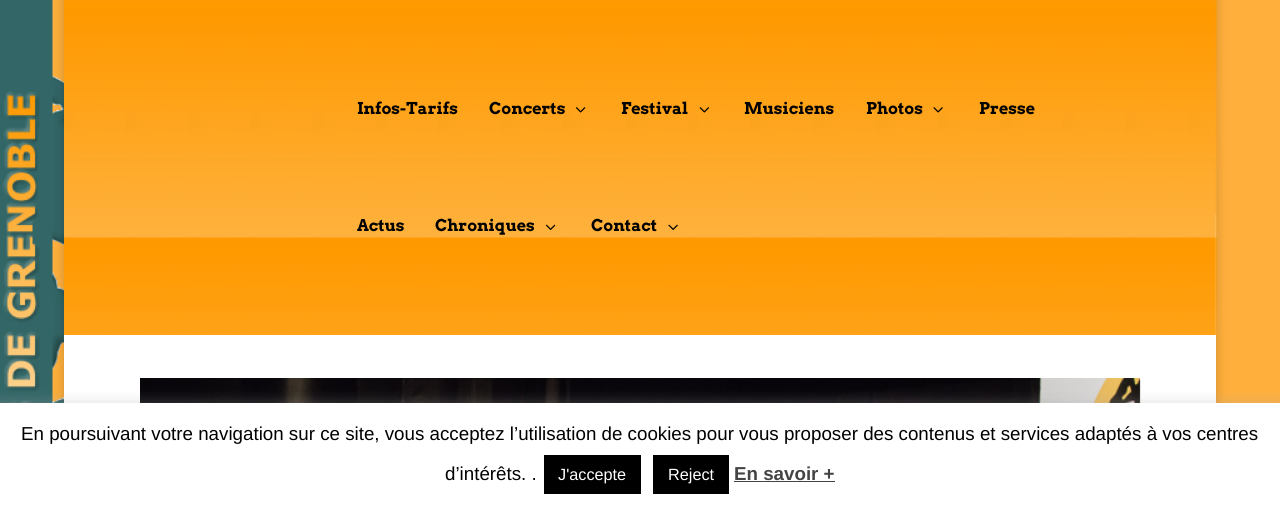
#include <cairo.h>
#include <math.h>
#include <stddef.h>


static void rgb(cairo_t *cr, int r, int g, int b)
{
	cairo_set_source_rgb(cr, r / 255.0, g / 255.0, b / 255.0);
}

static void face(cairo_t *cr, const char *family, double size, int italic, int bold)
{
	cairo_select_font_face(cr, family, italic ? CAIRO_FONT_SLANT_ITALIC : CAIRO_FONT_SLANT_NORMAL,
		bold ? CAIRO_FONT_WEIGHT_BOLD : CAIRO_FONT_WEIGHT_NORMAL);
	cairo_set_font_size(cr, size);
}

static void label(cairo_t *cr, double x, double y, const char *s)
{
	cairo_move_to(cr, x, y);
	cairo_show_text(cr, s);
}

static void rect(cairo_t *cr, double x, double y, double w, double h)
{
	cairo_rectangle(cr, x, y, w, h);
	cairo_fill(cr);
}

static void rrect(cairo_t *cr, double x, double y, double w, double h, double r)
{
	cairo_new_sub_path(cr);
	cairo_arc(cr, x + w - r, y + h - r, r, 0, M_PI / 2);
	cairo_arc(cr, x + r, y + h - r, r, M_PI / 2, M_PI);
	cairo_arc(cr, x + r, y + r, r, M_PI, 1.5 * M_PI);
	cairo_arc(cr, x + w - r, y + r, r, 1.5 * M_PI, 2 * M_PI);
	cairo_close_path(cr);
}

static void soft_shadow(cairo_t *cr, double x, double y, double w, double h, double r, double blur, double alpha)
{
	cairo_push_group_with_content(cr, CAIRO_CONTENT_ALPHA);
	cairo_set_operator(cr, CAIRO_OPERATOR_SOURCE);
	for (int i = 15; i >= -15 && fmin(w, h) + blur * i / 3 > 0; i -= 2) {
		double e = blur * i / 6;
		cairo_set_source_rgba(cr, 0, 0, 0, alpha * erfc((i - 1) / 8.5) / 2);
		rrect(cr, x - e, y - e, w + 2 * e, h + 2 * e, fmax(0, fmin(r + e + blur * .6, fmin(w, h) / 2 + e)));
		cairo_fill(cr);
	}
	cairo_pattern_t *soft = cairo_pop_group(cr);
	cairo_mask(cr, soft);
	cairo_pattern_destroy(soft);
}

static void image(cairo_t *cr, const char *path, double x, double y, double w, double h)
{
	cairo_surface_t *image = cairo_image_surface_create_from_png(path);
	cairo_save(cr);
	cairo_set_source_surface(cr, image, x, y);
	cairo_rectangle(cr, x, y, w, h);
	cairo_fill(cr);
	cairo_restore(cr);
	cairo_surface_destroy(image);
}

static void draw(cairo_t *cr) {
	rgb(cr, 255, 175, 60);
	cairo_paint(cr);
	image(cr, "image0.png", 0, 0, 64, 403);
	rgb(cr, 0, 0, 0);
	soft_shadow(cr, 64, -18, 1152, 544, 0, 6, 0.2);
	rgb(cr, 255, 255, 255);
	rect(cr, 64, 214, 1152, 189);
	image(cr, "image1.png", 64, 0, 1153, 335);
	face(cr, "Arvo", 16.25, 0, 1);
	rgb(cr, 0, 0, 0);
	label(cr, 357, 114, "Infos-Tarifs");
	label(cr, 489, 114, "Concerts");
	image(cr, "image2.png", 576, 107, 10, 6);
	label(cr, 621, 114, "Festival");
	image(cr, "image3.png", 699, 107, 10, 6);
	label(cr, 744, 114, "Musiciens");
	label(cr, 866, 114, "Photos");
	image(cr, "image4.png", 933, 107, 10, 6);
	label(cr, 979, 114, "Presse");
	label(cr, 357, 231, "Actus");
	label(cr, 435, 231, "Chroniques");
	image(cr, "image5.png", 546, 224, 10, 6);
	label(cr, 591, 231, "Contact");
	image(cr, "image6.png", 668, 224, 10, 6);
	image(cr, "image7.png", 140, 378, 1001, 25);
	rgb(cr, 172, 171, 171);
	soft_shadow(cr, 0, 401, 1280, 107, 0, 6, 0.3);
	rgb(cr, 255, 255, 255);
	rect(cr, 0, 403, 1280, 105);
	face(cr, "Liberation Sans", 18.75, 0, 0);
	rgb(cr, 0, 0, 0);
	label(cr, 21, 440, "En poursuivant votre navigation sur ce site, vous acceptez l’utilisation de cookies pour vous proposer des contenus et services adaptés à vos centres");
	label(cr, 445, 480, "d’intérêts. .");
	rect(cr, 544, 455, 97, 39);
	face(cr, "Liberation Sans", 16.25, 0, 0);
	rgb(cr, 255, 255, 255);
	label(cr, 558, 480, "J'accepte");
	rgb(cr, 0, 0, 0);
	rect(cr, 653, 455, 76, 39);
	rgb(cr, 255, 255, 255);
	label(cr, 668, 480, "Reject");
	face(cr, "Liberation Sans", 18.75, 0, 1);
	rgb(cr, 68, 68, 68);
	label(cr, 734, 480, "En savoir +");
	rect(cr, 734, 481, 101, 1);
}

int main(void) {
	cairo_surface_t *surface = cairo_image_surface_create(CAIRO_FORMAT_RGB24, 1280, 508);
	cairo_t *cr = cairo_create(surface);
	cairo_font_options_t *options = cairo_font_options_create();
	cairo_font_options_set_hint_metrics(options, CAIRO_HINT_METRICS_OFF);
	cairo_font_options_set_hint_style(options, CAIRO_HINT_STYLE_NONE);
	cairo_set_font_options(cr, options);
	cairo_set_miter_limit(cr, 4);
	draw(cr);
	cairo_surface_write_to_png(surface, "render.png");
	cairo_font_options_destroy(options);
	cairo_destroy(cr);
	cairo_surface_destroy(surface);
	return 0;
}
